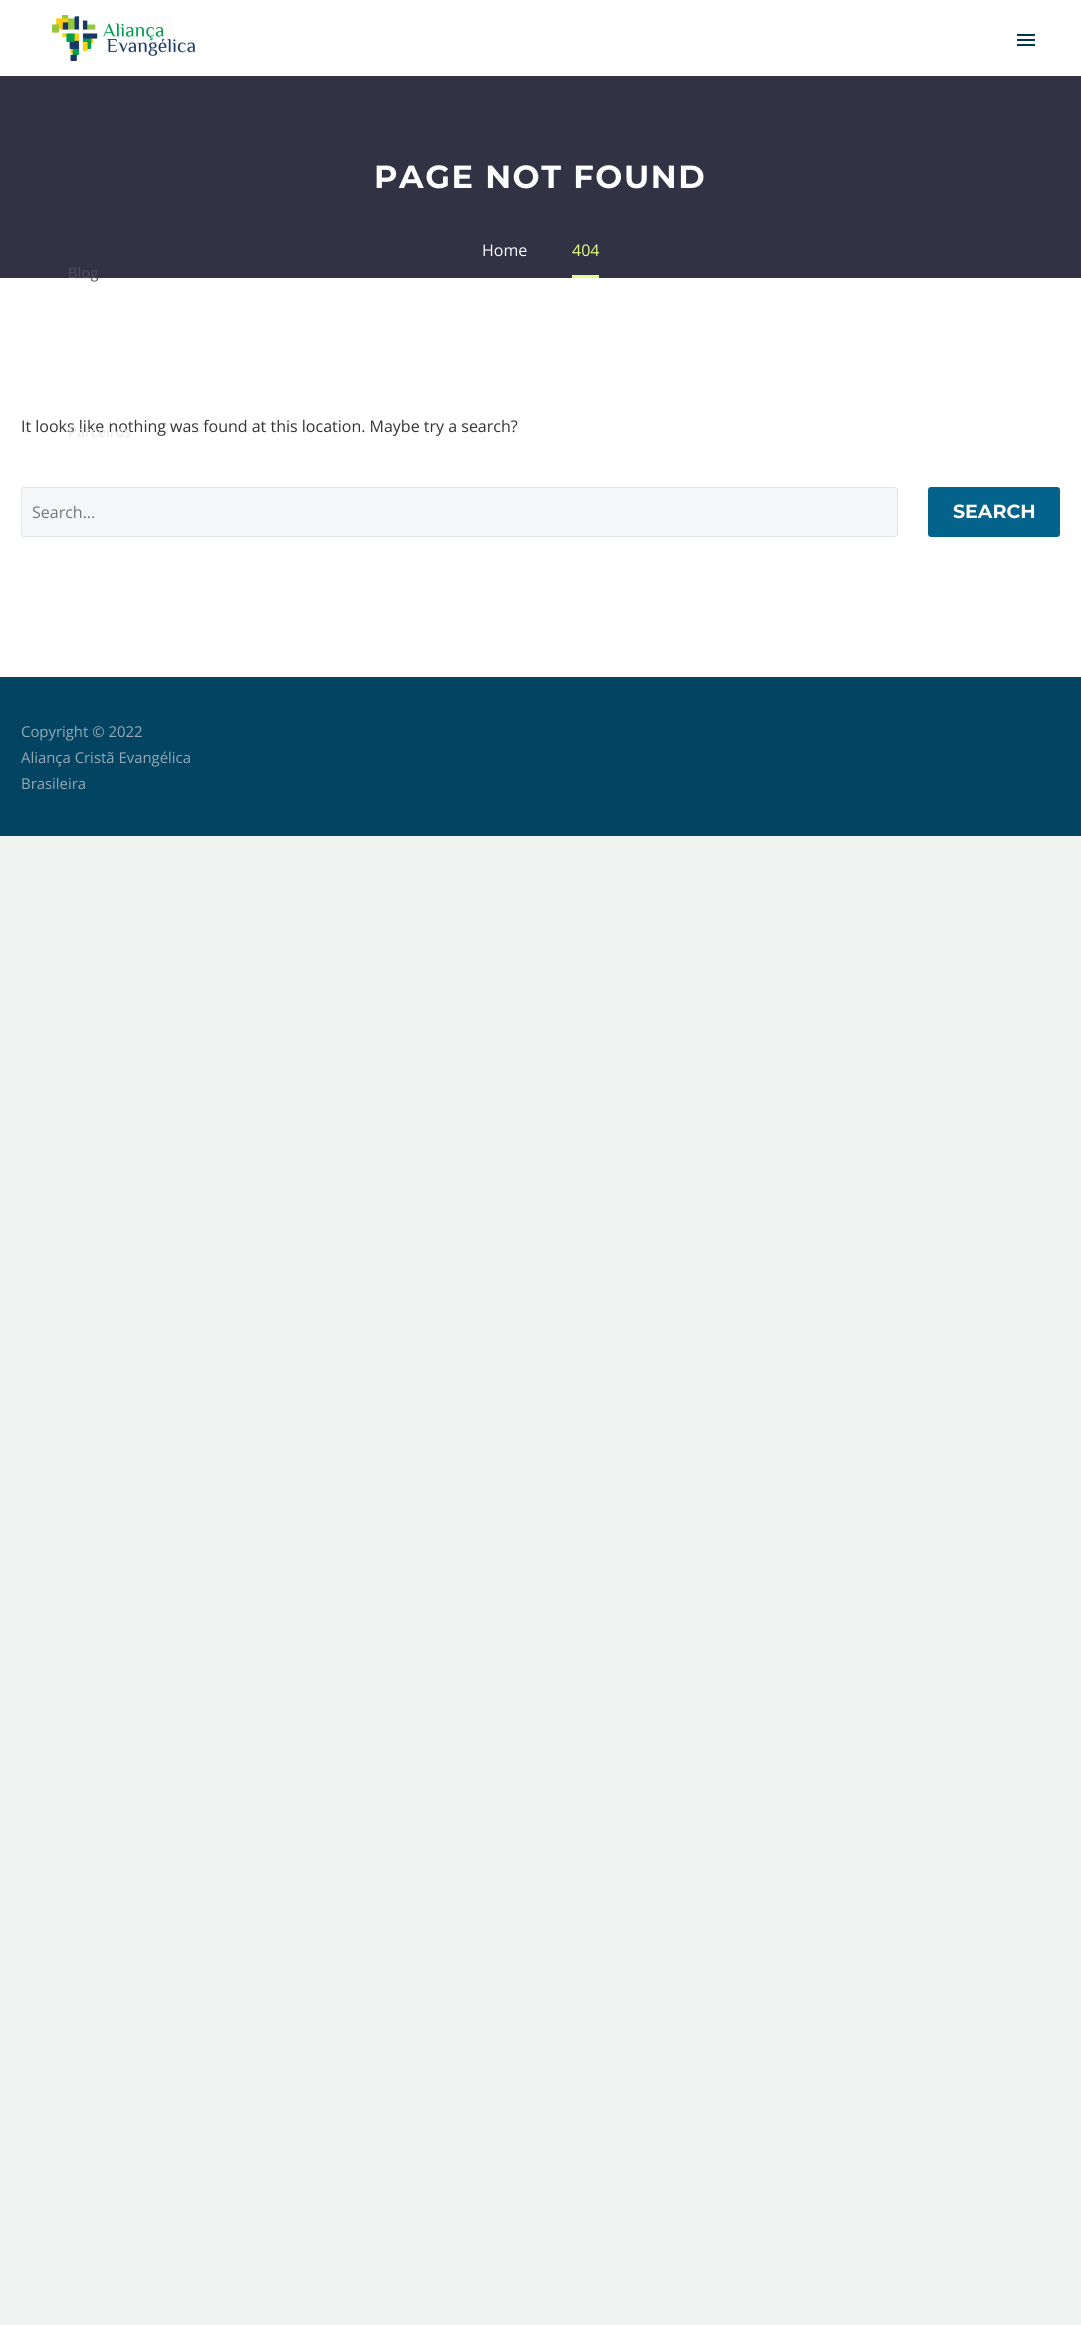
#include <cairo.h>
#include <math.h>
#include <stddef.h>


static void rgb(cairo_t *cr, int r, int g, int b)
{
	cairo_set_source_rgb(cr, r / 255.0, g / 255.0, b / 255.0);
}

static void face(cairo_t *cr, const char *family, double size, int italic, int bold)
{
	cairo_select_font_face(cr, family, italic ? CAIRO_FONT_SLANT_ITALIC : CAIRO_FONT_SLANT_NORMAL,
		bold ? CAIRO_FONT_WEIGHT_BOLD : CAIRO_FONT_WEIGHT_NORMAL);
	cairo_set_font_size(cr, size);
}

static void label(cairo_t *cr, double x, double y, const char *s)
{
	cairo_move_to(cr, x, y);
	cairo_show_text(cr, s);
}

static void tracked(cairo_t *cr, double x, double y, const char *s, double letter, double word)
{
	cairo_move_to(cr, x, y);
	while (*s) {
		char ch[5] = {0};
		int n = 0;
		do ch[n++] = *s++; while ((*s & 0xC0) == 0x80);
		cairo_show_text(cr, ch);
		cairo_rel_move_to(cr, letter + word * (*ch == ' '), 0);
	}
}

static void rect(cairo_t *cr, double x, double y, double w, double h)
{
	cairo_rectangle(cr, x, y, w, h);
	cairo_fill(cr);
}

static void rrect(cairo_t *cr, double x, double y, double w, double h, double r)
{
	cairo_new_sub_path(cr);
	cairo_arc(cr, x + w - r, y + h - r, r, 0, M_PI / 2);
	cairo_arc(cr, x + r, y + h - r, r, M_PI / 2, M_PI);
	cairo_arc(cr, x + r, y + r, r, M_PI, 1.5 * M_PI);
	cairo_arc(cr, x + w - r, y + r, r, 1.5 * M_PI, 2 * M_PI);
	cairo_close_path(cr);
}

static void image(cairo_t *cr, const char *path, double x, double y, double w, double h)
{
	cairo_surface_t *image = cairo_image_surface_create_from_png(path);
	cairo_save(cr);
	cairo_set_source_surface(cr, image, x, y);
	cairo_rectangle(cr, x, y, w, h);
	cairo_fill(cr);
	cairo_restore(cr);
	cairo_surface_destroy(image);
}

static void draw(cairo_t *cr) {
	rgb(cr, 240, 243, 242);
	cairo_paint(cr);
	rgb(cr, 51, 49, 68);
	rect(cr, 0, 76, 1081, 202);
	face(cr, "Montserrat", 32, 0, 1);
	rgb(cr, 255, 255, 255);
	tracked(cr, 374, 188, "PAGE NOT FOUND", 1.6, 0);
	face(cr, "Open Sans", 16, 0, 0);
	label(cr, 482, 256, "Home");
	rgb(cr, 231, 255, 137);
	rect(cr, 572, 275, 27, 3);
	label(cr, 572, 256, "404");
	rgb(cr, 255, 255, 255);
	rect(cr, 0, 278, 1081, 399);
	rgb(cr, 51, 51, 51);
	label(cr, 21, 432, "It looks like nothing was found at this location. Maybe try a search?");
	rgb(cr, 244, 246, 247);
	rrect(cr, 21.5, 487.5, 876, 49, 2.5);
	cairo_fill_preserve(cr);
	rgb(cr, 223, 229, 232);
	cairo_set_line_width(cr, 1);
	cairo_stroke(cr);
	rgb(cr, 117, 117, 117);
	label(cr, 32, 518, "Search...");
	rgb(cr, 4, 99, 138);
	rrect(cr, 928, 487, 132, 50, 3);
	cairo_fill(cr);
	face(cr, "Montserrat", 19, 0, 1);
	rgb(cr, 255, 255, 255);
	label(cr, 953, 518, "SEARCH");
	rect(cr, 0, 0, 1081, 76);
	image(cr, "image0.png", 52, 15, 143, 46);
	rgb(cr, 2, 54, 74);
	rect(cr, 1017, 34, 18, 2);
	rect(cr, 1017, 39, 18, 2);
	rect(cr, 1017, 44, 18, 2);
	face(cr, "Source Sans Pro", 16, 0, 0);
	rgb(cr, 78, 76, 93);
	label(cr, 68, 278, "Blog");
	rgb(cr, 232, 232, 232);
	label(cr, 68, 437, "Parceiros");
	rgb(cr, 2, 68, 97);
	rect(cr, 0, 678, 1081, 158);
	rgb(cr, 49, 54, 70);
	rect(cr, 0, 677, 1081, 1);
	face(cr, "Open Sans", 14.9, 0, 0);
	rgb(cr, 153, 169, 181);
	label(cr, 21, 737, "Copyright © 2022");
	label(cr, 21, 763, "Aliança Cristã Evangélica");
	label(cr, 21, 789, "Brasileira");
}

int main(void) {
	cairo_surface_t *surface = cairo_image_surface_create(CAIRO_FORMAT_RGB24, 1081, 2325);
	cairo_t *cr = cairo_create(surface);
	cairo_font_options_t *options = cairo_font_options_create();
	cairo_font_options_set_hint_metrics(options, CAIRO_HINT_METRICS_OFF);
	cairo_font_options_set_hint_style(options, CAIRO_HINT_STYLE_NONE);
	cairo_set_font_options(cr, options);
	cairo_set_miter_limit(cr, 4);
	draw(cr);
	cairo_surface_write_to_png(surface, "render.png");
	cairo_font_options_destroy(options);
	cairo_destroy(cr);
	cairo_surface_destroy(surface);
	return 0;
}
